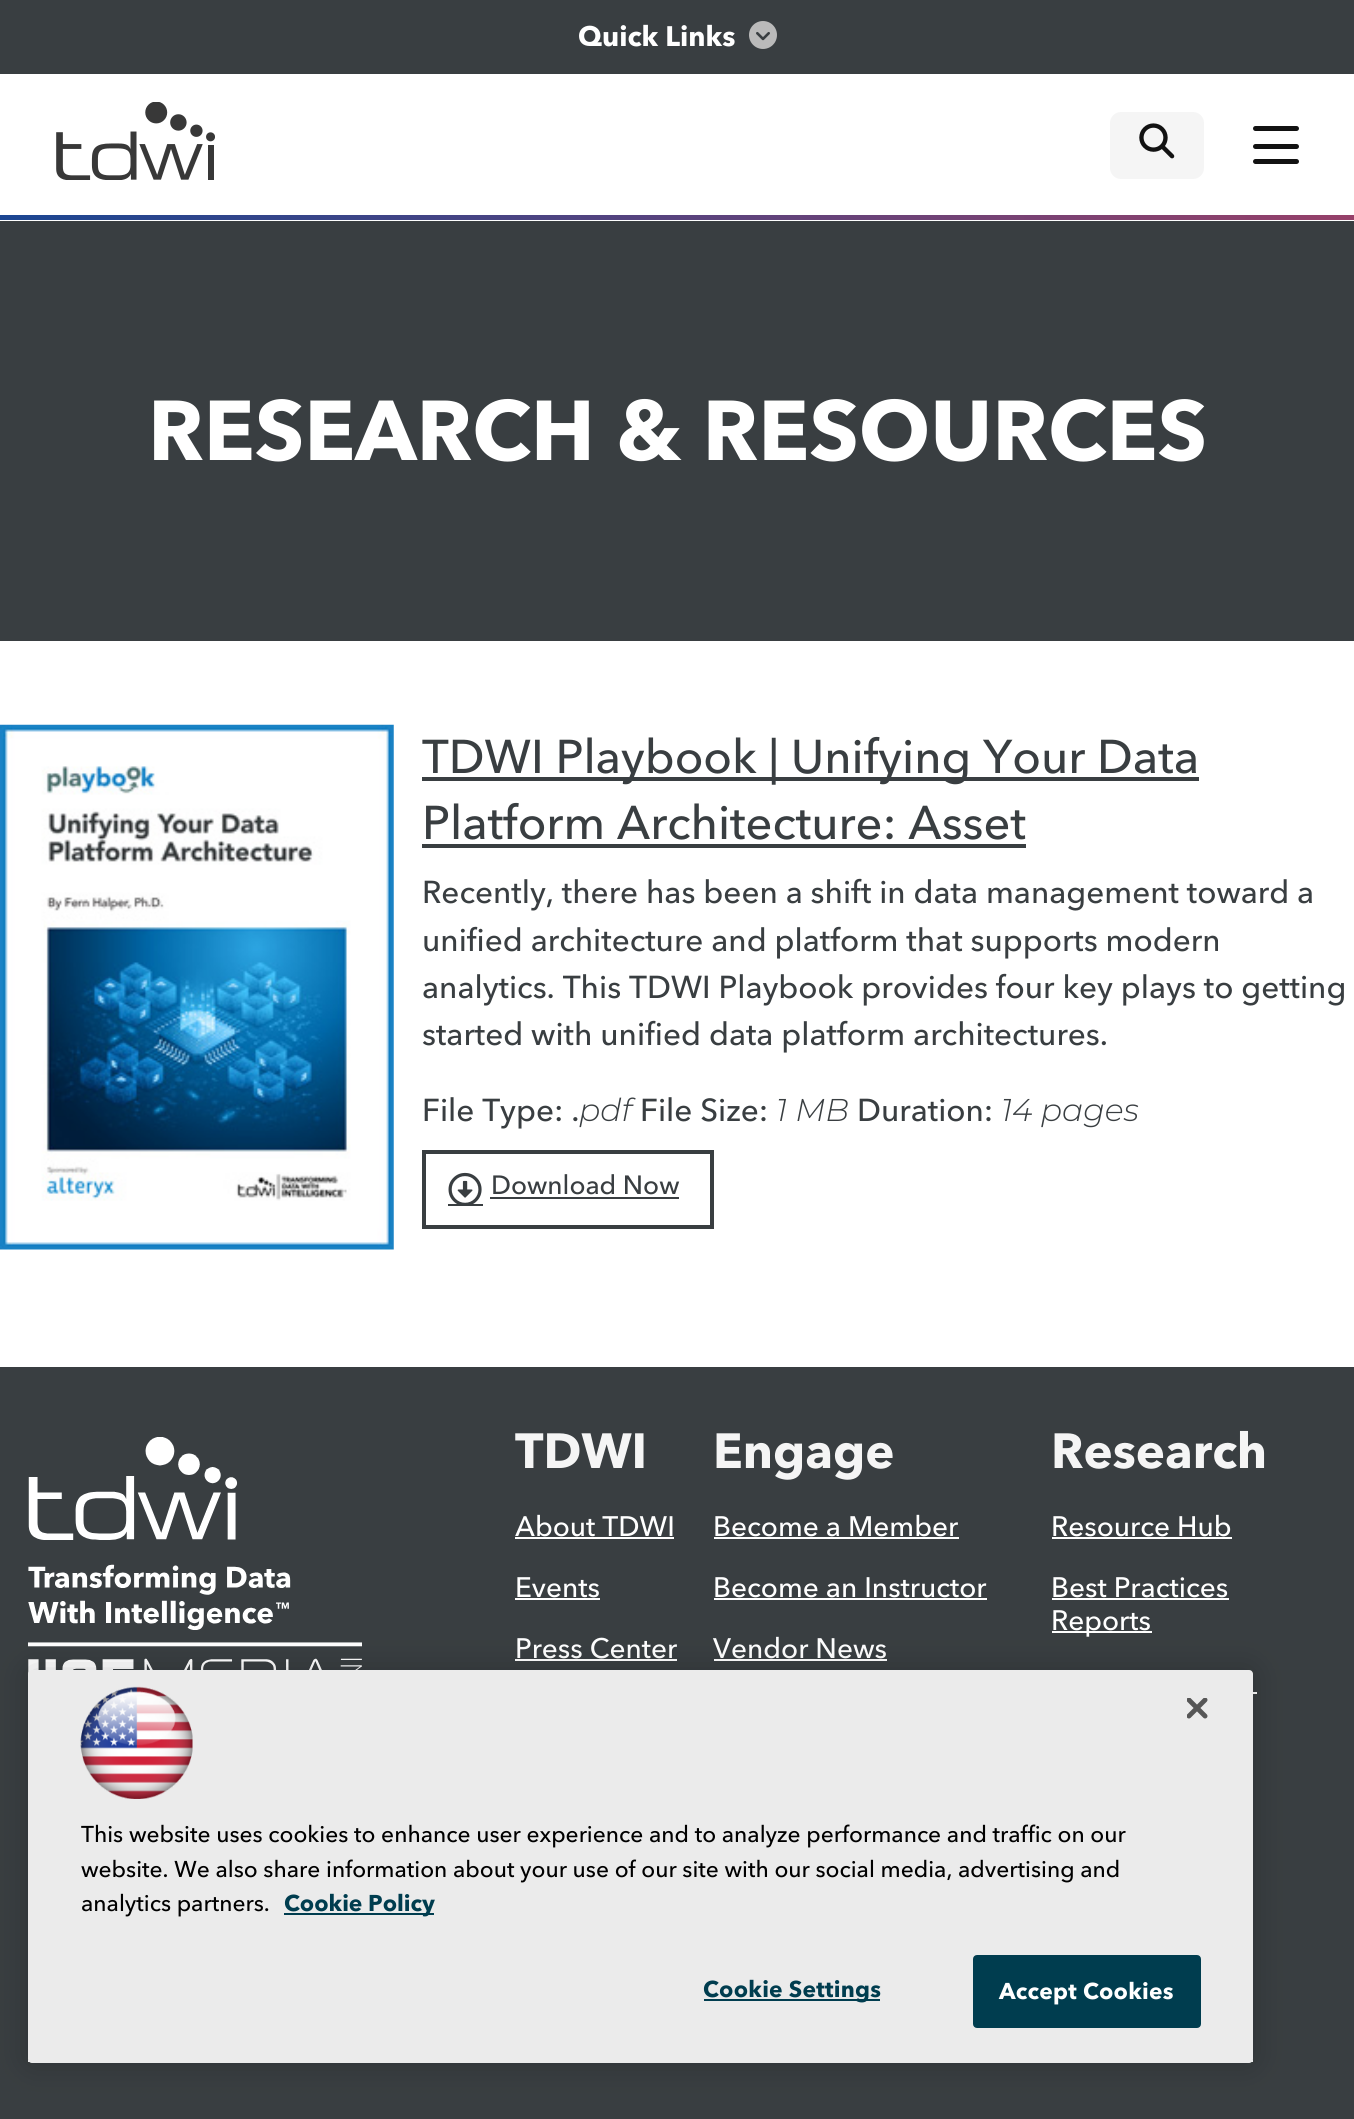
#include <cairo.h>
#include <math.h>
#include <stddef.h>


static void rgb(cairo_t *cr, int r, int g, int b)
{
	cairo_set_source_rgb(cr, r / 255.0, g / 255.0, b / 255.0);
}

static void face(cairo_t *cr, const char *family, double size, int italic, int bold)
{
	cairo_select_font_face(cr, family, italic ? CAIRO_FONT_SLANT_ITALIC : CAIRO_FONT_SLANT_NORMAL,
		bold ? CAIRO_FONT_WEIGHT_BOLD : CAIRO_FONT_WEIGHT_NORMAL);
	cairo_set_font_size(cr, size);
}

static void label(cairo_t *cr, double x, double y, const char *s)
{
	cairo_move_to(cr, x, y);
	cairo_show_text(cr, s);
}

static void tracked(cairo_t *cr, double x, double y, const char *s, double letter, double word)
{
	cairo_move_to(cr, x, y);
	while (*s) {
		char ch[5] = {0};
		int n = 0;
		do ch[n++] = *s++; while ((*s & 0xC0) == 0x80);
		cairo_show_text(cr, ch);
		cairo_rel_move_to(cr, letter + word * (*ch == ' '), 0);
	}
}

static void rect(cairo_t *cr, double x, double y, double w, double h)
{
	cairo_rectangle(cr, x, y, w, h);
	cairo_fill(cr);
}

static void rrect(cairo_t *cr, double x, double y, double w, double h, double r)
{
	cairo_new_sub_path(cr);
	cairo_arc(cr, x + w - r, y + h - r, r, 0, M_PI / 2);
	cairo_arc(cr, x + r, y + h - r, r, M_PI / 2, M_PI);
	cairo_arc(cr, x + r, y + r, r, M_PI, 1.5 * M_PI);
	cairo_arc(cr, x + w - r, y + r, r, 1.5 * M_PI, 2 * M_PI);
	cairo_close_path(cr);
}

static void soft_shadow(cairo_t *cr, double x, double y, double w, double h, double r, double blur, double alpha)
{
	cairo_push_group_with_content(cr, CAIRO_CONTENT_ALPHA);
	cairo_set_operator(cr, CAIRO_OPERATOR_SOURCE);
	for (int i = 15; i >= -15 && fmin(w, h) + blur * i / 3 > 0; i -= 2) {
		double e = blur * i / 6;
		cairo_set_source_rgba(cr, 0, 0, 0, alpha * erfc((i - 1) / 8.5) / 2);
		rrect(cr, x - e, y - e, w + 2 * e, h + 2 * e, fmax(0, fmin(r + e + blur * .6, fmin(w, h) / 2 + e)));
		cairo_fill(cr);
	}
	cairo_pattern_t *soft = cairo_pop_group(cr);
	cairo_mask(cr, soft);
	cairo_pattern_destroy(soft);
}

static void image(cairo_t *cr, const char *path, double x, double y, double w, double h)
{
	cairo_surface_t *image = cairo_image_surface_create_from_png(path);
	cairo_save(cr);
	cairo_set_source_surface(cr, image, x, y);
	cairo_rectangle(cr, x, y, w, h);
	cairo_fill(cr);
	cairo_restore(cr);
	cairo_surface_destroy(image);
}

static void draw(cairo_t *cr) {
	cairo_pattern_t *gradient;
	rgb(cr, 255, 255, 255);
	cairo_paint(cr);
	rgb(cr, 57, 62, 65);
	rect(cr, 0, 0, 1354, 74);
	face(cr, "Avenir Next", 28, 0, 1);
	rgb(cr, 255, 255, 255);
	label(cr, 578, 46, "Quick Links");
	image(cr, "image0.png", 749, 21, 28, 28);
	image(cr, "image1.png", 56, 102, 159, 78);
	rgb(cr, 245, 245, 245);
	rrect(cr, 1110, 112, 94, 67, 11);
	cairo_fill(cr);
	image(cr, "image2.png", 1139, 123, 36, 36);
	rgb(cr, 18, 18, 18);
	rrect(cr, 1253, 126, 46, 5, 2.5);
	cairo_fill(cr);
	rrect(cr, 1253, 144, 46, 5, 2.5);
	cairo_fill(cr);
	rrect(cr, 1253, 159, 46, 5, 2.5);
	cairo_fill(cr);
	gradient = cairo_pattern_create_linear(0, 218, 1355, 218);
	cairo_pattern_add_color_stop_rgba(gradient, 0, 0.106, 0.275, 0.573, 1);
	cairo_pattern_add_color_stop_rgba(gradient, 1, 0.588, 0.251, 0.412, 1);
	cairo_set_source(cr, gradient);
	cairo_pattern_destroy(gradient);
	rect(cr, 0, 215, 1354, 5);
	rgb(cr, 57, 62, 65);
	rect(cr, 0, 221, 1354, 420);
	face(cr, "Avenir Next", 84, 0, 1);
	rgb(cr, 255, 255, 255);
	label(cr, 148, 460, "RESEARCH & RESOURCES");
	image(cr, "image3.png", 0, 724, 394, 526);
	rgb(cr, 57, 62, 65);
	rect(cr, 422, 777, 777, 4);
	face(cr, "Avenir Next Medium", 47, 0, 0);
	label(cr, 422, 773, "TDWI Playbook | Unifying Your Data");
	label(cr, 422, 839, "Platform Architecture: Asset");
	rect(cr, 422, 844, 604, 4);
	face(cr, "Avenir Next Medium", 31.5, 0, 0);
	label(cr, 422, 903, "Recently, there has been a shift in data management toward a");
	label(cr, 422, 951, "unified architecture and platform that supports modern");
	label(cr, 422, 998, "analytics. This TDWI Playbook provides four key plays to getting");
	label(cr, 422, 1045, "started with unified data platform architectures.");
	label(cr, 422, 1121, "File Type: .");
	face(cr, "Montserrat Light", 31.5, 1, 0);
	label(cr, 579, 1121, "pdf");
	face(cr, "Avenir Next Medium", 31.5, 0, 0);
	label(cr, 640, 1121, "File Size:");
	face(cr, "Montserrat Light", 31.5, 1, 0);
	label(cr, 776, 1121, "1 MB");
	face(cr, "Avenir Next Medium", 31.5, 0, 0);
	label(cr, 857, 1121, "Duration:");
	face(cr, "Montserrat Light", 31.5, 1, 0);
	label(cr, 1001, 1121, "14 pages");
	cairo_rectangle(cr, 424, 1152, 288, 75);
	cairo_set_line_width(cr, 4);
	cairo_stroke(cr);
	image(cr, "image4.png", 448, 1172, 34, 32);
	face(cr, "Avenir Next Medium", 26.25, 0, 0);
	label(cr, 491, 1194, "Download Now");
	rect(cr, 490, 1197, 189, 2);
	rect(cr, 448, 1204, 35, 2);
	rect(cr, 0, 1367, 1354, 752);
	image(cr, "image5.png", 28, 1437, 334, 237);
	face(cr, "Avenir Next", 49, 0, 1);
	rgb(cr, 245, 245, 245);
	label(cr, 515, 1468, "TDWI");
	face(cr, "Avenir Next Medium", 28, 0, 0);
	rgb(cr, 255, 255, 255);
	label(cr, 515, 1536, "About TDWI");
	rect(cr, 515, 1537, 159, 2);
	label(cr, 515, 1597, "Events");
	rect(cr, 515, 1598, 85, 2);
	label(cr, 515, 1658, "Press Center");
	rect(cr, 515, 1659, 162, 2);
	face(cr, "Avenir Next", 49, 0, 1);
	rgb(cr, 245, 245, 245);
	label(cr, 713, 1468, "Engage");
	face(cr, "Avenir Next Medium", 28, 0, 0);
	rgb(cr, 255, 255, 255);
	label(cr, 713, 1536, "Become a Member");
	rect(cr, 714, 1537, 245, 2);
	label(cr, 713, 1597, "Become an Instructor");
	rect(cr, 714, 1598, 273, 2);
	label(cr, 713, 1658, "Vendor News");
	rect(cr, 714, 1659, 173, 2);
	face(cr, "Avenir Next", 49, 0, 1);
	rgb(cr, 245, 245, 245);
	label(cr, 1051, 1468, "Research");
	face(cr, "Avenir Next Medium", 28, 0, 0);
	rgb(cr, 255, 255, 255);
	label(cr, 1051, 1536, "Resource Hub");
	rect(cr, 1052, 1537, 180, 2);
	label(cr, 1051, 1597, "Best Practices");
	rect(cr, 1052, 1598, 177, 2);
	rect(cr, 1052, 1631, 100, 2);
	label(cr, 1051, 1630, "Reports");
	rect(cr, 1253, 1692, 4, 2);
	rect(cr, 28, 2060, 2, 2);
	rect(cr, 1251, 2060, 2, 2);
	rgb(cr, 0, 0, 0);
	soft_shadow(cr, 28, 1670, 1225, 393, 4, 16, 0.2);
	rgb(cr, 235, 235, 235);
	rrect(cr, 28, 1670, 1225, 393, 4);
	cairo_fill(cr);
	image(cr, "image6.png", 1187, 1698, 21, 21);
	image(cr, "image7.png", 80, 1686, 113, 113);
	face(cr, "Avenir Next Medium", 22.75, 0, 0);
	rgb(cr, 0, 0, 0);
	label(cr, 81, 1842, "This website uses cookies to enhance user experience and to analyze performance and traffic on our");
	label(cr, 81, 1877, "website. We also share information about your use of our site with our social media, advertising and");
	label(cr, 81, 1911, "analytics partners.");
	rgb(cr, 0, 61, 79);
	rect(cr, 284, 1913, 150, 2);
	face(cr, "Avenir Next", 22.75, 0, 1);
	label(cr, 284, 1911, "Cookie Policy");
	rect(cr, 704, 1999, 176, 2);
	tracked(cr, 703, 1997, "Cookie Settings", 0.25, 0);
	rrect(cr, 974, 1956, 226, 71, 3);
	cairo_fill_preserve(cr);
	cairo_set_line_width(cr, 2);
	cairo_stroke(cr);
	rgb(cr, 255, 255, 255);
	tracked(cr, 999, 1999, "Accept Cookies", 0.25, 0);
}

int main(void) {
	cairo_surface_t *surface = cairo_image_surface_create(CAIRO_FORMAT_RGB24, 1354, 2119);
	cairo_t *cr = cairo_create(surface);
	cairo_font_options_t *options = cairo_font_options_create();
	cairo_font_options_set_hint_metrics(options, CAIRO_HINT_METRICS_OFF);
	cairo_font_options_set_hint_style(options, CAIRO_HINT_STYLE_NONE);
	cairo_set_font_options(cr, options);
	cairo_set_miter_limit(cr, 4);
	draw(cr);
	cairo_surface_write_to_png(surface, "render.png");
	cairo_font_options_destroy(options);
	cairo_destroy(cr);
	cairo_surface_destroy(surface);
	return 0;
}
